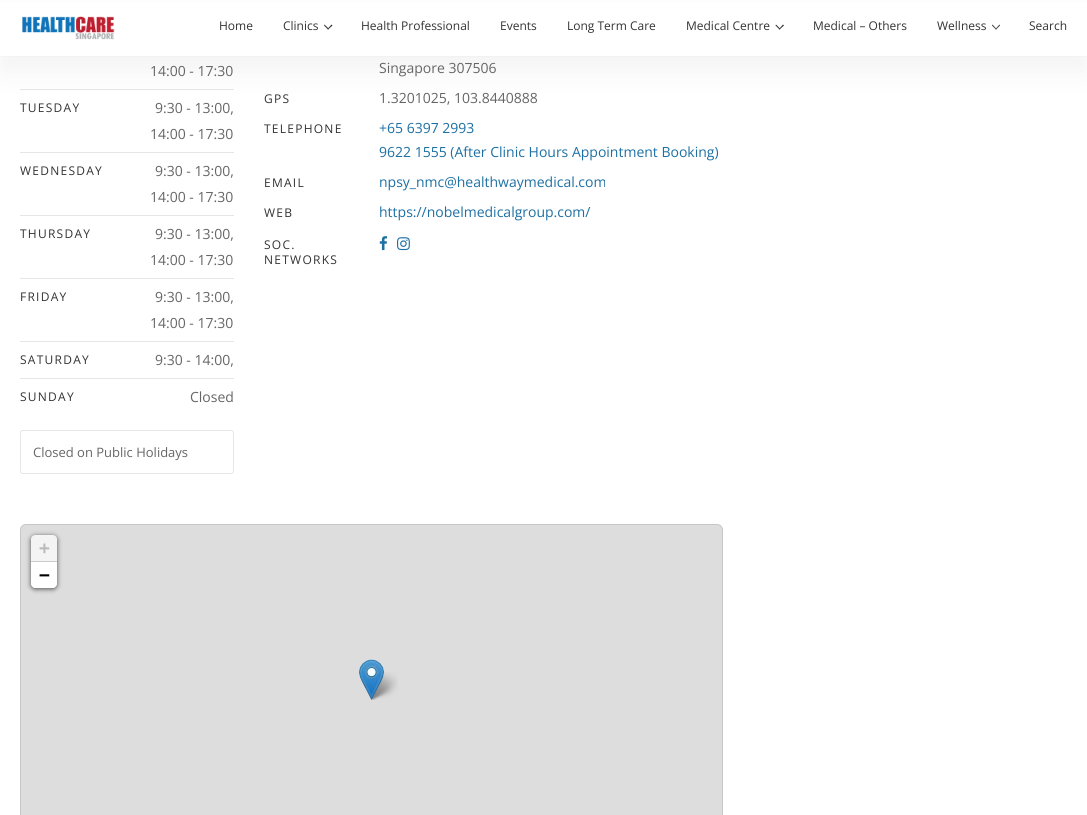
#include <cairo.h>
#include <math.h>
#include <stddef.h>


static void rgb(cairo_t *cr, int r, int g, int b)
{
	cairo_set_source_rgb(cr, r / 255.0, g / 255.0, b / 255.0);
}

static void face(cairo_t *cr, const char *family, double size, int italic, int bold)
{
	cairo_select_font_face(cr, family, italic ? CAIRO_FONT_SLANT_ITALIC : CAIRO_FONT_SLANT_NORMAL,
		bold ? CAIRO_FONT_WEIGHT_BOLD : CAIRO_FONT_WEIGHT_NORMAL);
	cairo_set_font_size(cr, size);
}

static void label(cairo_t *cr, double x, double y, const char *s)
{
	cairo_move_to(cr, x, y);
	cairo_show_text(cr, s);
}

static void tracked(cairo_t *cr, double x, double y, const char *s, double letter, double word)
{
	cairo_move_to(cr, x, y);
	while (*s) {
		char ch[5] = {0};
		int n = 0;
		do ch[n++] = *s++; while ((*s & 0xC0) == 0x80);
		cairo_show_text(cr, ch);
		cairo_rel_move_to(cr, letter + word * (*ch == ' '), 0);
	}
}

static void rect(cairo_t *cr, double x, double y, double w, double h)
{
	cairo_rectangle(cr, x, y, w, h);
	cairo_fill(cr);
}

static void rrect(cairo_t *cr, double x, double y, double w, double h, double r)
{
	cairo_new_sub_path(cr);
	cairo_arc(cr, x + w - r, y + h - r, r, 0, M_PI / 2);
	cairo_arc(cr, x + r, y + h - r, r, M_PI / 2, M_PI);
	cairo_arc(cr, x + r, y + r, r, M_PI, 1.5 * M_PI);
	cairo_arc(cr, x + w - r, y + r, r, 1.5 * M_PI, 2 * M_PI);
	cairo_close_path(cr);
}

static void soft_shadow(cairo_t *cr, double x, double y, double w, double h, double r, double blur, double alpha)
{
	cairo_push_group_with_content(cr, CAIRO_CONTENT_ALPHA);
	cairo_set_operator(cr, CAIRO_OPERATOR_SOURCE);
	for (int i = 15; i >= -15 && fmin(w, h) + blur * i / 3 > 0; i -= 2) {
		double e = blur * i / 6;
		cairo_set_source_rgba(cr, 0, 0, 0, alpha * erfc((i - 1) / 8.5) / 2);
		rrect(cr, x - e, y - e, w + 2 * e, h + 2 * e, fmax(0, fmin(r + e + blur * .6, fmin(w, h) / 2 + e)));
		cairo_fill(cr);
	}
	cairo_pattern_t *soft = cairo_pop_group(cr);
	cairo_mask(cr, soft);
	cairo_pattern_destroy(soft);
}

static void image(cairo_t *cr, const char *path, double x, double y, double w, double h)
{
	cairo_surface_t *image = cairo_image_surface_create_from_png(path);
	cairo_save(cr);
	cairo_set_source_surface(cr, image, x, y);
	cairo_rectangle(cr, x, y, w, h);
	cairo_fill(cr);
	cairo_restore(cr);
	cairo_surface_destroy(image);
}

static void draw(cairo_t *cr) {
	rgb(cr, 255, 255, 255);
	cairo_paint(cr);
	rgb(cr, 252, 252, 252);
	rect(cr, 0, 56, 1087, 1);
	rgb(cr, 230, 230, 230);
	rect(cr, 20, 89, 214, 1);
	rgb(cr, 0, 0, 0);
	soft_shadow(cr, 0, 15, 1087, 56, 0, 15, 0.05);
	rgb(cr, 255, 255, 255);
	rect(cr, 0, 2, 1087, 54);
	image(cr, "image0.png", 22, 16, 93, 24);
	face(cr, "Open Sans", 12, 0, 0);
	rgb(cr, 51, 51, 51);
	label(cr, 219, 30, "Home");
	label(cr, 283, 30, "Clinics");
	cairo_new_path(cr);
	cairo_move_to(cr, 331.5, 24.5);
	cairo_line_to(cr, 332.5, 25.5);
	cairo_line_to(cr, 328, 29.5);
	cairo_line_to(cr, 327.5, 29);
	cairo_close_path(cr);
	cairo_fill(cr);
	cairo_new_path(cr);
	cairo_move_to(cr, 324.5, 24.5);
	cairo_line_to(cr, 329, 29);
	cairo_line_to(cr, 328, 29.5);
	cairo_line_to(cr, 324, 25.5);
	cairo_close_path(cr);
	cairo_fill(cr);
	label(cr, 361, 30, "Health Professional");
	label(cr, 500, 30, "Events");
	label(cr, 567, 30, "Long Term Care");
	label(cr, 686, 30, "Medical Centre");
	cairo_new_path(cr);
	cairo_move_to(cr, 783, 24.5);
	cairo_line_to(cr, 784, 25.5);
	cairo_line_to(cr, 779.5, 29.5);
	cairo_line_to(cr, 779, 29);
	cairo_close_path(cr);
	cairo_fill(cr);
	cairo_new_path(cr);
	cairo_move_to(cr, 776, 24.5);
	cairo_line_to(cr, 780.5, 29);
	cairo_line_to(cr, 779.5, 29.5);
	cairo_line_to(cr, 775.5, 25.5);
	cairo_close_path(cr);
	cairo_fill(cr);
	label(cr, 813, 30, "Medical – Others");
	label(cr, 937, 30, "Wellness");
	cairo_new_path(cr);
	cairo_move_to(cr, 999.5, 24.5);
	cairo_line_to(cr, 1000, 25.5);
	cairo_line_to(cr, 996, 29.5);
	cairo_line_to(cr, 995.5, 29);
	cairo_close_path(cr);
	cairo_fill(cr);
	cairo_new_path(cr);
	cairo_move_to(cr, 992.5, 24.5);
	cairo_line_to(cr, 996.5, 29);
	cairo_line_to(cr, 996, 29.5);
	cairo_line_to(cr, 992, 25.5);
	cairo_close_path(cr);
	cairo_fill(cr);
	label(cr, 1029, 30, "Search");
	face(cr, "Open Sans", 14, 0, 0);
	rgb(cr, 102, 102, 102);
	label(cr, 150, 76, "14:00 - 17:30");
	rgb(cr, 230, 230, 230);
	rect(cr, 20, 152, 214, 1);
	face(cr, "Open Sans", 12, 0, 0);
	rgb(cr, 51, 51, 51);
	tracked(cr, 20, 112, "TUESDAY", 1.25, 0);
	face(cr, "Open Sans", 14, 0, 0);
	rgb(cr, 102, 102, 102);
	label(cr, 155, 113, "9:30 - 13:00,");
	label(cr, 150, 139, "14:00 - 17:30");
	rgb(cr, 230, 230, 230);
	rect(cr, 20, 215, 214, 1);
	face(cr, "Open Sans", 12, 0, 0);
	rgb(cr, 51, 51, 51);
	tracked(cr, 20, 175, "WEDNESDAY", 1.25, 0);
	face(cr, "Open Sans", 14, 0, 0);
	rgb(cr, 102, 102, 102);
	label(cr, 155, 176, "9:30 - 13:00,");
	label(cr, 150, 202, "14:00 - 17:30");
	rgb(cr, 230, 230, 230);
	rect(cr, 20, 278, 214, 1);
	face(cr, "Open Sans", 12, 0, 0);
	rgb(cr, 51, 51, 51);
	tracked(cr, 20, 238, "THURSDAY", 1.25, 0);
	face(cr, "Open Sans", 14, 0, 0);
	rgb(cr, 102, 102, 102);
	label(cr, 155, 239, "9:30 - 13:00,");
	label(cr, 150, 265, "14:00 - 17:30");
	rgb(cr, 230, 230, 230);
	rect(cr, 20, 341, 214, 1);
	face(cr, "Open Sans", 12, 0, 0);
	rgb(cr, 51, 51, 51);
	tracked(cr, 20, 301, "FRIDAY", 1.25, 0);
	face(cr, "Open Sans", 14, 0, 0);
	rgb(cr, 102, 102, 102);
	label(cr, 155, 302, "9:30 - 13:00,");
	label(cr, 150, 328, "14:00 - 17:30");
	rgb(cr, 230, 230, 230);
	rect(cr, 20, 378, 214, 1);
	face(cr, "Open Sans", 12, 0, 0);
	rgb(cr, 51, 51, 51);
	tracked(cr, 20, 364, "SATURDAY", 1.25, 0);
	face(cr, "Open Sans", 14, 0, 0);
	rgb(cr, 102, 102, 102);
	label(cr, 155, 365, "9:30 - 14:00,");
	face(cr, "Open Sans", 12, 0, 0);
	rgb(cr, 51, 51, 51);
	tracked(cr, 20, 401, "SUNDAY", 1.25, 0);
	face(cr, "Open Sans", 14, 0, 0);
	rgb(cr, 102, 102, 102);
	label(cr, 190, 402, "Closed");
	rrect(cr, 20.5, 430.5, 213, 43, 2.5);
	rgb(cr, 230, 230, 230);
	cairo_set_line_width(cr, 1);
	cairo_stroke(cr);
	face(cr, "Open Sans", 13, 0, 0);
	rgb(cr, 102, 102, 102);
	label(cr, 33, 457, "Closed on Public Holidays");
	face(cr, "Open Sans", 14, 0, 0);
	label(cr, 379, 73, "Singapore 307506");
	face(cr, "Open Sans", 12, 0, 0);
	rgb(cr, 51, 51, 51);
	tracked(cr, 264, 103, "GPS", 1.25, 0);
	face(cr, "Open Sans", 14, 0, 0);
	rgb(cr, 102, 102, 102);
	label(cr, 379, 103, "1.3201025, 103.8440888");
	face(cr, "Open Sans", 12, 0, 0);
	rgb(cr, 51, 51, 51);
	tracked(cr, 264, 133, "TELEPHONE", 1.25, 0);
	face(cr, "Open Sans", 14, 0, 0);
	rgb(cr, 29, 112, 163);
	label(cr, 379, 133, "+65 6397 2993");
	label(cr, 379, 157, "9622 1555 (After Clinic Hours Appointment Booking)");
	face(cr, "Open Sans", 12, 0, 0);
	rgb(cr, 51, 51, 51);
	tracked(cr, 264, 187, "EMAIL", 1.25, 0);
	face(cr, "Open Sans", 14, 0, 0);
	rgb(cr, 29, 112, 163);
	label(cr, 379, 187, "npsy_nmc@healthwaymedical.com");
	face(cr, "Open Sans", 12, 0, 0);
	rgb(cr, 51, 51, 51);
	tracked(cr, 264, 217, "WEB", 1.25, 0);
	face(cr, "Open Sans", 14, 0, 0);
	rgb(cr, 29, 112, 163);
	label(cr, 379, 217, "https://nobelmedicalgroup.com/");
	face(cr, "Open Sans", 12, 0, 0);
	rgb(cr, 51, 51, 51);
	tracked(cr, 264, 249, "SOC.", 1.25, 0);
	tracked(cr, 264, 264, "NETWORKS", 1.25, 0);
	image(cr, "image1.png", 379, 236, 9, 15);
	image(cr, "image2.png", 397, 237, 13, 14);
	rgb(cr, 221, 221, 221);
	rrect(cr, 20, 524, 703, 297, 6);
	cairo_fill(cr);
	rrect(cr, 20.5, 524.5, 702, 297, 5.5);
	cairo_set_source_rgba(cr, 0, 0, 0, 0.1);
	cairo_stroke(cr);
	rgb(cr, 0, 0, 0);
	soft_shadow(cr, 31, 536, 26, 53, 4, 2.5, 0.65);
	rgb(cr, 244, 244, 244);
	cairo_new_path(cr);
	cairo_move_to(cr, 35, 535);
	cairo_line_to(cr, 53, 535);
	cairo_curve_to(cr, 55, 535, 57, 537, 57, 539);
	cairo_line_to(cr, 57, 562);
	cairo_line_to(cr, 31, 562);
	cairo_line_to(cr, 31, 539);
	cairo_curve_to(cr, 31, 537, 33, 535, 35, 535);
	cairo_close_path(cr);
	cairo_fill(cr);
	rgb(cr, 204, 204, 204);
	rect(cr, 31, 561, 26, 1);
	face(cr, "DejaVu Sans Mono", 18, 0, 1);
	rgb(cr, 187, 187, 187);
	label(cr, 39, 554, "+");
	rgb(cr, 255, 255, 255);
	cairo_new_path(cr);
	cairo_move_to(cr, 31, 562);
	cairo_line_to(cr, 57, 562);
	cairo_line_to(cr, 57, 584);
	cairo_curve_to(cr, 57, 586, 55, 588, 53, 588);
	cairo_line_to(cr, 35, 588);
	cairo_curve_to(cr, 33, 588, 31, 586, 31, 584);
	cairo_close_path(cr);
	cairo_fill(cr);
	rgb(cr, 0, 0, 0);
	label(cr, 39, 581, "−");
	image(cr, "image4.png", 369, 672, 29, 28);
	image(cr, "image3.png", 359, 659, 25, 41);
}

int main(void) {
	cairo_surface_t *surface = cairo_image_surface_create(CAIRO_FORMAT_RGB24, 1087, 815);
	cairo_t *cr = cairo_create(surface);
	cairo_font_options_t *options = cairo_font_options_create();
	cairo_font_options_set_hint_metrics(options, CAIRO_HINT_METRICS_OFF);
	cairo_font_options_set_hint_style(options, CAIRO_HINT_STYLE_NONE);
	cairo_set_font_options(cr, options);
	cairo_set_miter_limit(cr, 4);
	draw(cr);
	cairo_surface_write_to_png(surface, "render.png");
	cairo_font_options_destroy(options);
	cairo_destroy(cr);
	cairo_surface_destroy(surface);
	return 0;
}
